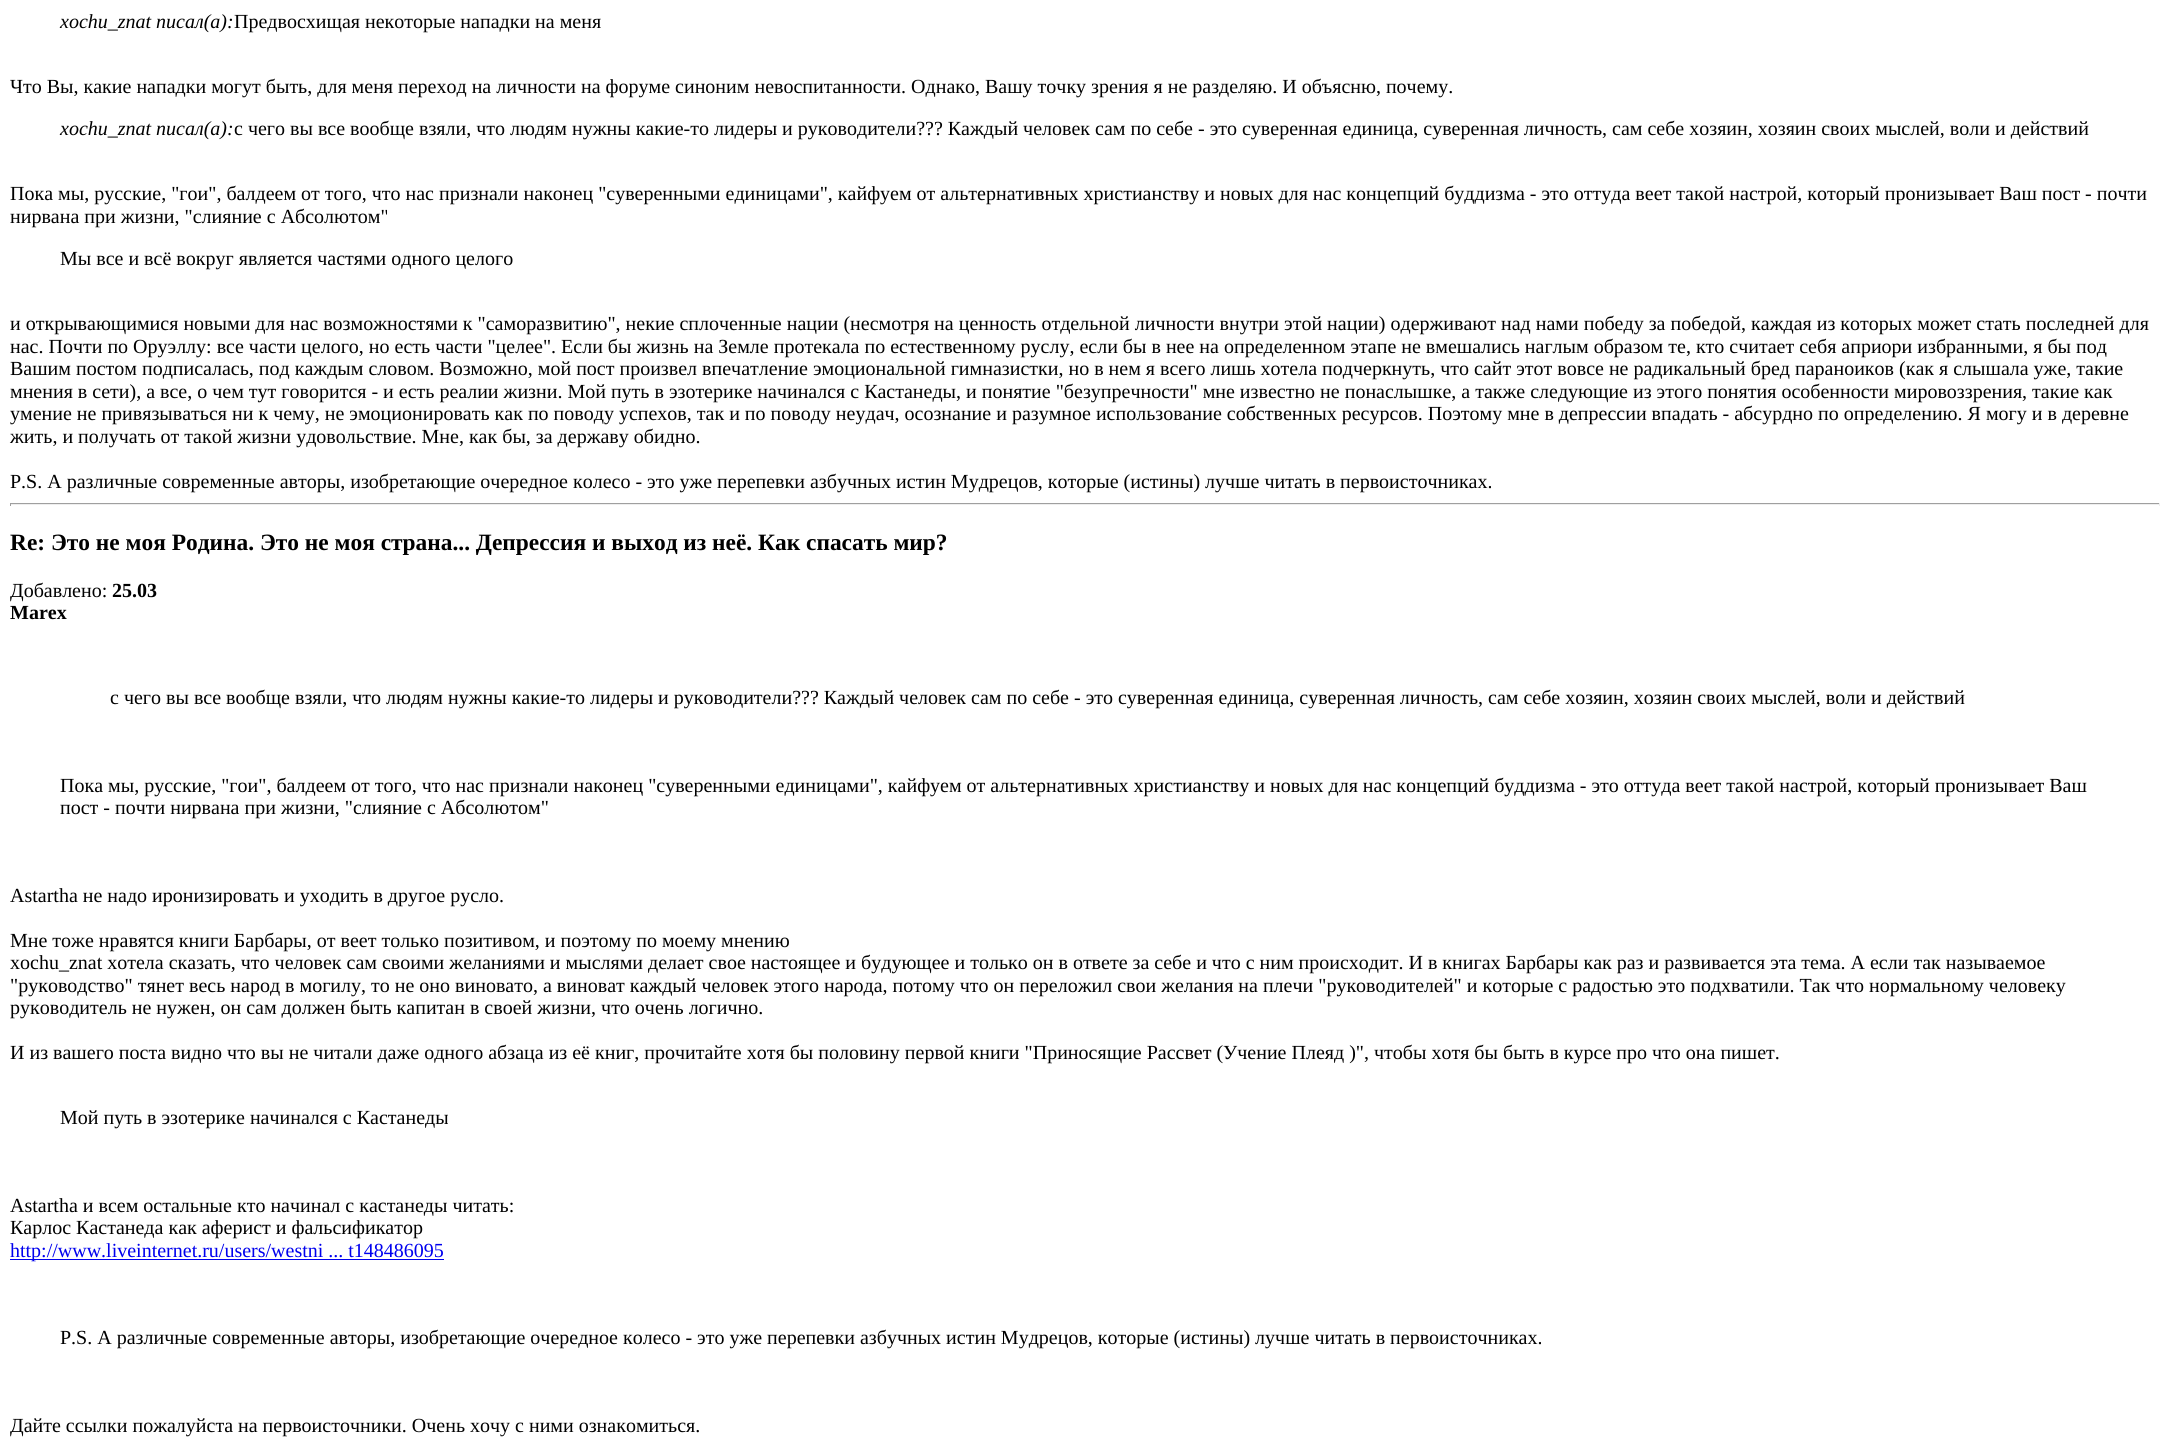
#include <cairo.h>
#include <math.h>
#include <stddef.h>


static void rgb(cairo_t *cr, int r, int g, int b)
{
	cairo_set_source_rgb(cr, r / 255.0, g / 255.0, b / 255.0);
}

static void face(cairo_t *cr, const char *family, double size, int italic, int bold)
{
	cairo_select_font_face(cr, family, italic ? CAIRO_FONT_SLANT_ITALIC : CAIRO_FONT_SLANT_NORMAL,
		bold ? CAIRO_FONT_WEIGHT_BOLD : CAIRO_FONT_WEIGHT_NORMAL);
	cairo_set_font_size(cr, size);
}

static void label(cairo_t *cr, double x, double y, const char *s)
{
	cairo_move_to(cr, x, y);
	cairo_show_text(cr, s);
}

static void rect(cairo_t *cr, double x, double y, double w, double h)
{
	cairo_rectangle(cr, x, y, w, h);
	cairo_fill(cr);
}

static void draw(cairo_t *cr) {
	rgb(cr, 255, 255, 255);
	cairo_paint(cr);
	face(cr, "Liberation Serif", 20, 1, 0);
	rgb(cr, 0, 0, 0);
	label(cr, 60, 28, "xochu_znat писал(а):");
	face(cr, "Liberation Serif", 20, 0, 0);
	label(cr, 234, 28, "Предвосхищая некоторые нападки на меня");
	label(cr, 10, 93, "Что Вы, какие нападки могут быть, для меня переход на личности на форуме синоним невоспитанности. Однако, Вашу точку зрения я не разделяю. И объясню, почему.");
	face(cr, "Liberation Serif", 20, 1, 0);
	label(cr, 60, 135, "xochu_znat писал(а):");
	face(cr, "Liberation Serif", 20, 0, 0);
	label(cr, 234, 135, "с чего вы все вообще взяли, что людям нужны какие-то лидеры и руководители?\077? Каждый человек сам по себе - это суверенная единица, суверенная личность, сам себе хозяин, хозяин своих мыслей, воли и действий");
	label(cr, 10, 200, "Пока мы, русские, \"гои\", балдеем от того, что нас признали наконец \"суверенными единицами\", кайфуем от альтернативных христианству и новых для нас концепций буддизма - это оттуда веет такой настрой, который пронизывает Ваш пост - почти");
	label(cr, 10, 223, "нирвана при жизни, \"слияние с Абсолютом\"");
	label(cr, 60, 265, "Мы все и всё вокруг является частями одного целого");
	label(cr, 10, 330, "и открывающимися новыми для нас возможностями к \"саморазвитию\", некие сплоченные нации (несмотря на ценность отдельной личности внутри этой нации) одерживают над нами победу за победой, каждая из которых может стать последней для");
	label(cr, 10, 353, "нас. Почти по Оруэллу: все части целого, но есть части \"целее\". Если бы жизнь на Земле протекала по естественному руслу, если бы в нее на определенном этапе не вмешались наглым образом те, кто считает себя априори избранными, я бы под");
	label(cr, 10, 375, "Вашим постом подписалась, под каждым словом. Возможно, мой пост произвел впечатление эмоциональной гимназистки, но в нем я всего лишь хотела подчеркнуть, что сайт этот вовсе не радикальный бред параноиков (как я слышала уже, такие");
	label(cr, 10, 398, "мнения в сети), а все, о чем тут говорится - и есть реалии жизни. Мой путь в эзотерике начинался с Кастанеды, и понятие \"безупречности\" мне известно не понаслышке, а также следующие из этого понятия особенности мировоззрения, такие как");
	label(cr, 10, 420, "умение не привязываться ни к чему, не эмоционировать как по поводу успехов, так и по поводу неудач, осознание и разумное использование собственных ресурсов. Поэтому мне в депрессии впадать - абсурдно по определению. Я могу и в деревне");
	label(cr, 10, 443, "жить, и получать от такой жизни удовольствие. Мне, как бы, за державу обидно.");
	label(cr, 10, 488, "P.S. А различные современные авторы, изобретающие очередное колесо - это уже перепевки азбучных истин Мудрецов, которые (истины) лучше читать в первоисточниках.");
	rgb(cr, 159, 159, 159);
	rect(cr, 10, 503, 2150, 1);
	rgb(cr, 238, 238, 238);
	rect(cr, 2159, 503, 1, 3);
	rect(cr, 10, 504, 2150, 1);
	rgb(cr, 159, 159, 159);
	rect(cr, 10, 503, 1, 3);
	face(cr, "Liberation Serif", 23.4, 0, 1);
	rgb(cr, 0, 0, 0);
	label(cr, 10, 550, "Re: Это не моя Родина. Это не моя страна... Депрессия и выход из неё. Как спасать мир?");
	face(cr, "Liberation Serif", 20, 0, 0);
	label(cr, 10, 597, "Добавлено:");
	face(cr, "Liberation Serif", 20, 0, 1);
	label(cr, 112, 597, "25.03");
	label(cr, 10, 619, "Marex");
	face(cr, "Liberation Serif", 20, 0, 0);
	label(cr, 110, 704, "с чего вы все вообще взяли, что людям нужны какие-то лидеры и руководители?\077? Каждый человек сам по себе - это суверенная единица, суверенная личность, сам себе хозяин, хозяин своих мыслей, воли и действий");
	label(cr, 60, 792, "Пока мы, русские, \"гои\", балдеем от того, что нас признали наконец \"суверенными единицами\", кайфуем от альтернативных христианству и новых для нас концепций буддизма - это оттуда веет такой настрой, который пронизывает Ваш");
	label(cr, 60, 814, "пост - почти нирвана при жизни, \"слияние с Абсолютом\"");
	label(cr, 10, 902, "Astartha не надо иронизировать и уходить в другое русло.");
	label(cr, 10, 947, "Мне тоже нравятся книги Барбары, от веет только позитивом, и поэтому по моему мнению");
	label(cr, 10, 969, "xochu_znat хотела сказать, что человек сам своими желаниями и мыслями делает свое настоящее и будующее и только он в ответе за себе и что с ним происходит. И в книгах Барбары как раз и развивается эта тема. А если так называемое");
	label(cr, 10, 992, "\"руководство\" тянет весь народ в могилу, то не оно виновато, а виноват каждый человек этого народа, потому что он переложил свои желания на плечи \"руководителей\" и которые с радостью это подхватили. Так что нормальному человеку");
	label(cr, 10, 1014, "руководитель не нужен, он сам должен быть капитан в своей жизни, что очень логично.");
	label(cr, 10, 1059, "И из вашего поста видно что вы не читали даже одного абзаца из её книг, прочитайте хотя бы половину первой книги \"Приносящие Рассвет (Учение Плеяд )\", чтобы хотя бы быть в курсе про что она пишет.");
	label(cr, 60, 1124, "Мой путь в эзотерике начинался с Кастанеды");
	label(cr, 10, 1212, "Astartha и всем остальные кто начинал с кастанеды читать:");
	label(cr, 10, 1234, "Карлос Кастанеда как аферист и фальсификатор");
	rgb(cr, 0, 0, 238);
	rect(cr, 10, 1259, 434, 1);
	label(cr, 10, 1257, "http://www.liveinternet.ru/users/westni ... t148486095");
	rgb(cr, 0, 0, 0);
	label(cr, 60, 1344, "P.S. А различные современные авторы, изобретающие очередное колесо - это уже перепевки азбучных истин Мудрецов, которые (истины) лучше читать в первоисточниках.");
	label(cr, 10, 1432, "Дайте ссылки пожалуйста на первоисточники. Очень хочу с ними ознакомиться.");
}

int main(void) {
	cairo_surface_t *surface = cairo_image_surface_create(CAIRO_FORMAT_RGB24, 2169, 1444);
	cairo_t *cr = cairo_create(surface);
	cairo_font_options_t *options = cairo_font_options_create();
	cairo_font_options_set_hint_metrics(options, CAIRO_HINT_METRICS_OFF);
	cairo_font_options_set_hint_style(options, CAIRO_HINT_STYLE_NONE);
	cairo_set_font_options(cr, options);
	cairo_set_miter_limit(cr, 4);
	draw(cr);
	cairo_surface_write_to_png(surface, "render.png");
	cairo_font_options_destroy(options);
	cairo_destroy(cr);
	cairo_surface_destroy(surface);
	return 0;
}
